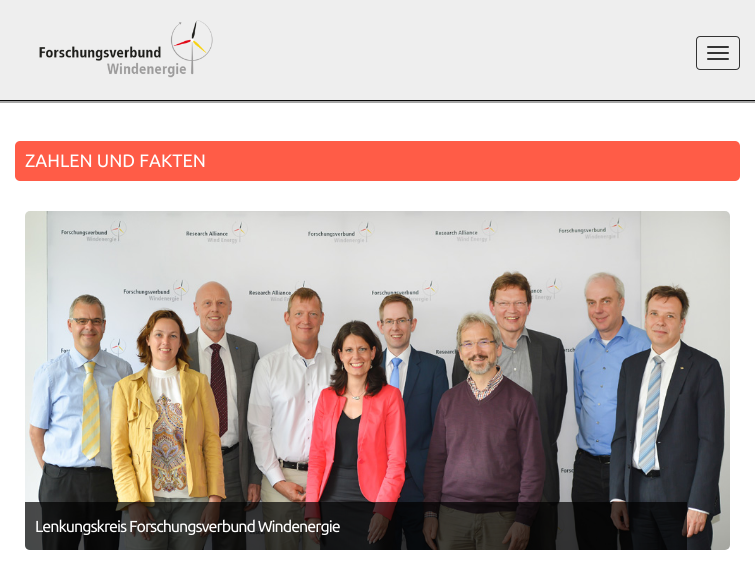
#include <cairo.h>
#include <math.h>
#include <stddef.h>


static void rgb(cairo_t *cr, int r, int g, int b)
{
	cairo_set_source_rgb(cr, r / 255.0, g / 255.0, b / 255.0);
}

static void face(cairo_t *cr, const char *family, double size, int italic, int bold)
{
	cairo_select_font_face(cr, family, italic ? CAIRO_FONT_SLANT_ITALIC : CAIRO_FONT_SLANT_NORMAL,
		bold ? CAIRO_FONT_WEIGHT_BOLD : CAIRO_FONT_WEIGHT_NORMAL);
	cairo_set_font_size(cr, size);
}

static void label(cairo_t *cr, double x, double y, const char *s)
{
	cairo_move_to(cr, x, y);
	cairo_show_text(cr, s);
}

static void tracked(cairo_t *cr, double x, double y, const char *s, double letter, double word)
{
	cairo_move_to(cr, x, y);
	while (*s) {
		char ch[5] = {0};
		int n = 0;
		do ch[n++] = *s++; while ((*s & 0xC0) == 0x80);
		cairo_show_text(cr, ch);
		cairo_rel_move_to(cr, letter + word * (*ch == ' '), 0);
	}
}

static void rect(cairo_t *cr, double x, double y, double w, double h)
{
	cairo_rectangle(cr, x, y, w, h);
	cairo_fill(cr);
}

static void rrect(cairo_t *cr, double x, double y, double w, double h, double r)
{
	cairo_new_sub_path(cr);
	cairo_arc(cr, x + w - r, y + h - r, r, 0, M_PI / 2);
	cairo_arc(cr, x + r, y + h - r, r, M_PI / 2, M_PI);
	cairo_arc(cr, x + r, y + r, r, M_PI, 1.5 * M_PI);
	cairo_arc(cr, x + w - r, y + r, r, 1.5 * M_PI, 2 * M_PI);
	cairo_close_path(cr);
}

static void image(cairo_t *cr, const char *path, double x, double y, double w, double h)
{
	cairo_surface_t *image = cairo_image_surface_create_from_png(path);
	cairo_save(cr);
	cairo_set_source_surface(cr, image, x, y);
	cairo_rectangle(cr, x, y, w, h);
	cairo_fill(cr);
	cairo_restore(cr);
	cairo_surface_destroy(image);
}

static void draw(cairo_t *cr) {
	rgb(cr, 255, 255, 255);
	cairo_paint(cr);
	rgb(cr, 166, 166, 166);
	cairo_new_path(cr);
	cairo_move_to(cr, 0, 101);
	cairo_line_to(cr, 0, 103);
	cairo_line_to(cr, 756, 103);
	cairo_line_to(cr, 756, 1);
	cairo_line_to(cr, 755, 1);
	cairo_line_to(cr, 755, 101);
	cairo_close_path(cr);
	cairo_fill(cr);
	rgb(cr, 238, 238, 238);
	rect(cr, 0, 0, 755, 100);
	rgb(cr, 8, 8, 8);
	rect(cr, 0, 100, 755, 1);
	image(cr, "image0.png", 39, 20, 174, 58);
	rrect(cr, 696.5, 36.5, 43, 33, 3.5);
	rgb(cr, 51, 51, 51);
	cairo_set_line_width(cr, 1);
	cairo_stroke(cr);
	rrect(cr, 707, 46, 22, 2, 1);
	cairo_fill(cr);
	rrect(cr, 707, 52, 22, 2, 1);
	cairo_fill(cr);
	rrect(cr, 707, 58, 22, 2, 1);
	cairo_fill(cr);
	rgb(cr, 255, 92, 71);
	rrect(cr, 15, 141, 725, 40, 5);
	cairo_fill(cr);
	face(cr, "Ubuntu", 18, 0, 0);
	rgb(cr, 255, 255, 255);
	label(cr, 25, 167, "ZAHLEN UND FAKTEN");
	image(cr, "image1.png", 25, 211, 705, 339);
	cairo_set_source_rgba(cr, 0, 0, 0, 0.7);
	cairo_new_path(cr);
	cairo_move_to(cr, 25, 502);
	cairo_line_to(cr, 687, 502);
	cairo_line_to(cr, 687, 550);
	cairo_line_to(cr, 30, 550);
	cairo_curve_to(cr, 27, 550, 25, 548, 25, 545);
	cairo_close_path(cr);
	cairo_fill(cr);
	face(cr, "Ubuntu", 16, 0, 0);
	rgb(cr, 255, 255, 255);
	tracked(cr, 35, 532, "Lenkungskreis Forschungsverbund Windenergie", -1, 0);
}

int main(void) {
	cairo_surface_t *surface = cairo_image_surface_create(CAIRO_FORMAT_RGB24, 755, 582);
	cairo_t *cr = cairo_create(surface);
	cairo_font_options_t *options = cairo_font_options_create();
	cairo_font_options_set_hint_metrics(options, CAIRO_HINT_METRICS_OFF);
	cairo_font_options_set_hint_style(options, CAIRO_HINT_STYLE_NONE);
	cairo_set_font_options(cr, options);
	cairo_set_miter_limit(cr, 4);
	draw(cr);
	cairo_surface_write_to_png(surface, "render.png");
	cairo_font_options_destroy(options);
	cairo_destroy(cr);
	cairo_surface_destroy(surface);
	return 0;
}
